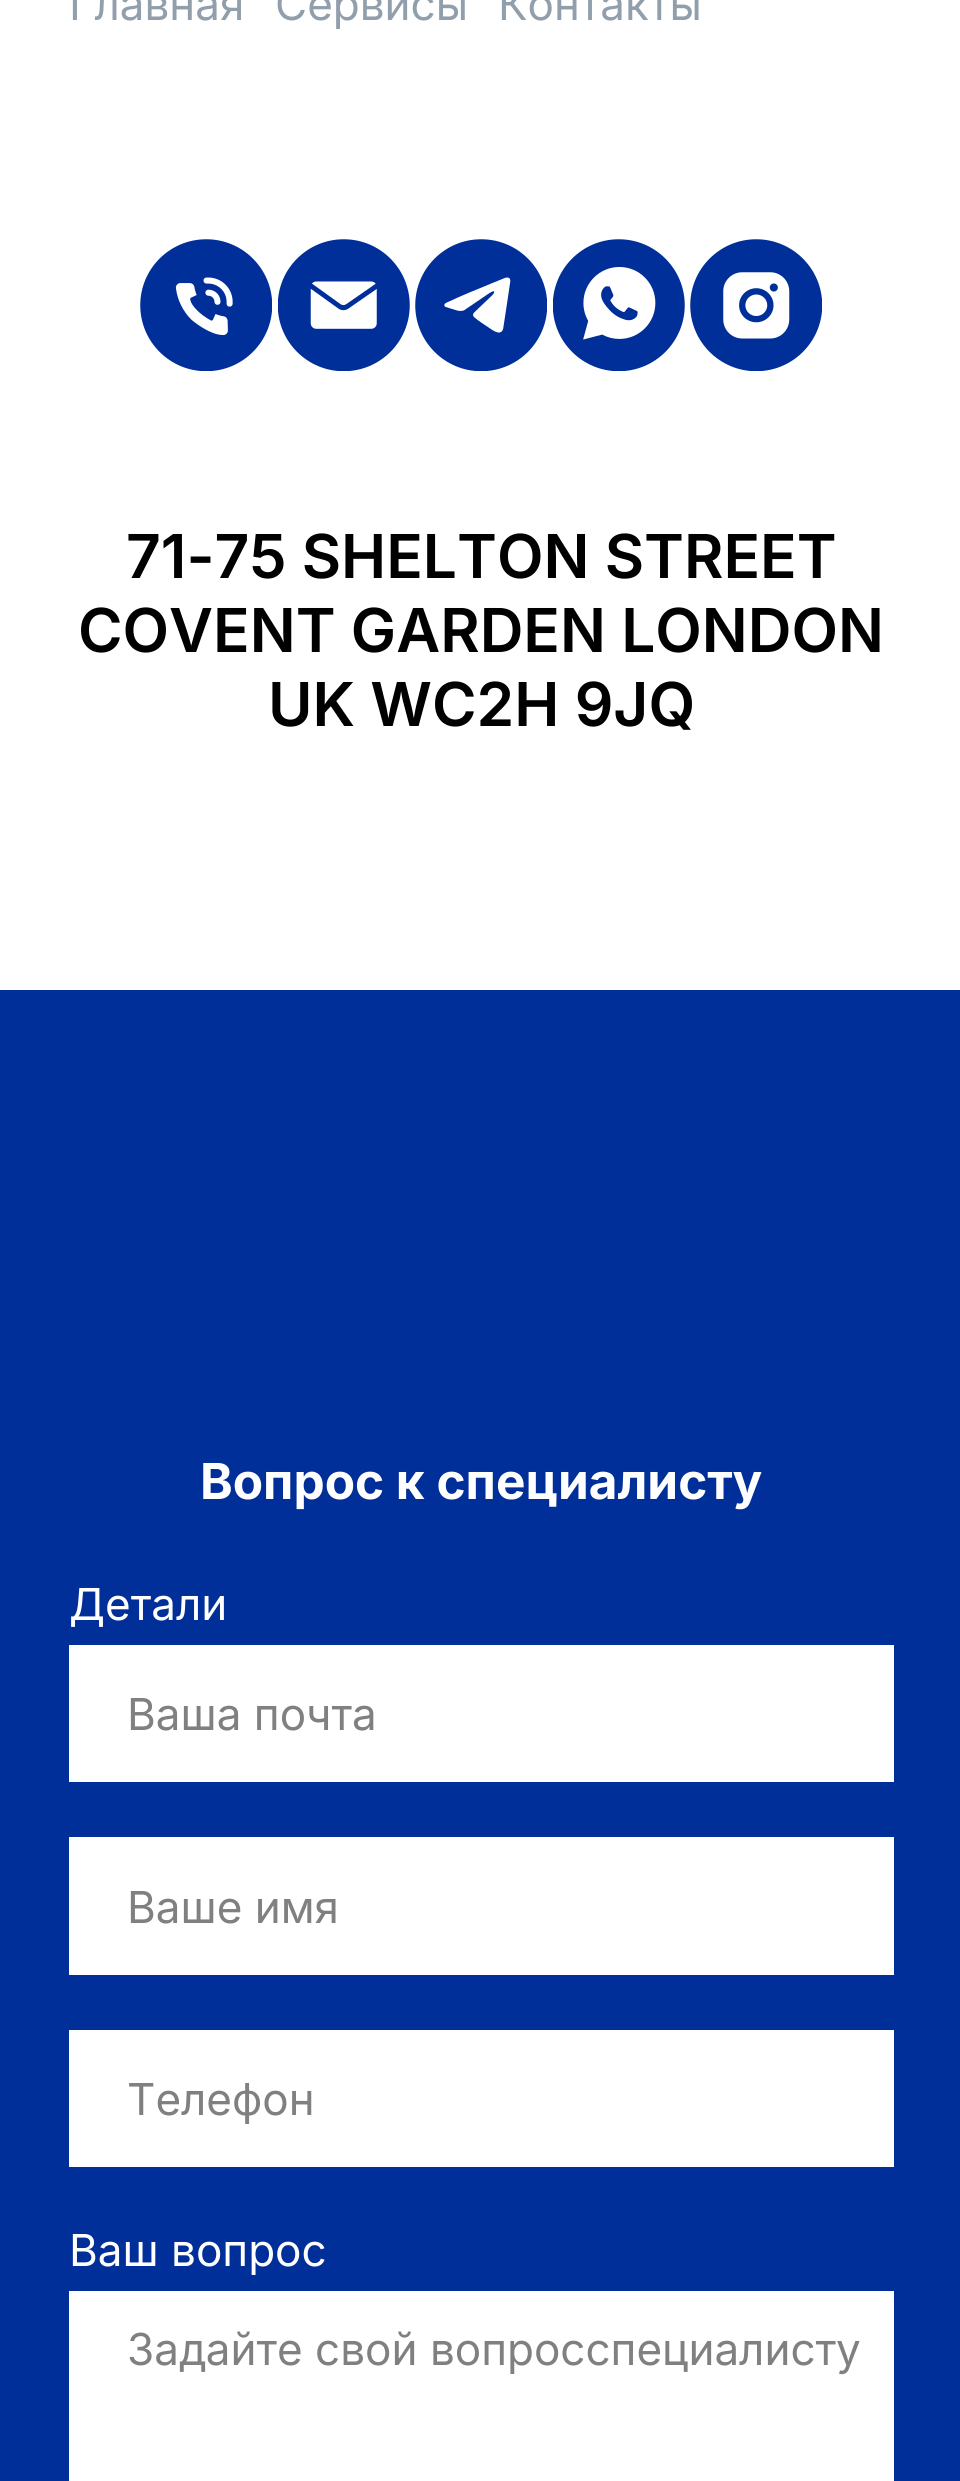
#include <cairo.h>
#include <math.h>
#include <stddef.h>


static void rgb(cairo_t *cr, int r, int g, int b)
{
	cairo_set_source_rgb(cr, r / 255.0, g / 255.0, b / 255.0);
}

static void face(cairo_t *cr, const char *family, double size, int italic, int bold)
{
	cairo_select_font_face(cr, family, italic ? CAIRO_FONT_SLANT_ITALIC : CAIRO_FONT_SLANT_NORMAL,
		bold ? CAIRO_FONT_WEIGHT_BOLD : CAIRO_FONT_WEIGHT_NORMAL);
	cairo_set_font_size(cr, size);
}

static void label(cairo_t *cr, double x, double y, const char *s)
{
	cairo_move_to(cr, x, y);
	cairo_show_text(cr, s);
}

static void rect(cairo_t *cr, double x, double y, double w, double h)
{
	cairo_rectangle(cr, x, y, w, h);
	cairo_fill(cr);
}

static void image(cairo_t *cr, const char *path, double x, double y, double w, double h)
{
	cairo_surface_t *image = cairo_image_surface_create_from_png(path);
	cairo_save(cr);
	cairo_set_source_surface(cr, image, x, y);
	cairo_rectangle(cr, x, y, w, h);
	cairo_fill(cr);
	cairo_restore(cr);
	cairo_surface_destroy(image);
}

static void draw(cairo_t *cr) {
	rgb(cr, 255, 255, 255);
	cairo_paint(cr);
	face(cr, "Inter", 44, 0, 0);
	rgb(cr, 145, 158, 171);
	label(cr, 69, 20, "Главная");
	label(cr, 275, 20, "Сервисы");
	label(cr, 498, 20, "Контакты");
	image(cr, "image0.png", 140, 239, 132, 132);
	image(cr, "image1.png", 278, 239, 132, 132);
	image(cr, "image2.png", 415, 239, 132, 132);
	image(cr, "image3.png", 553, 239, 132, 132);
	image(cr, "image4.png", 690, 239, 132, 132);
	face(cr, "Inter SemiBold", 60.5, 0, 0);
	rgb(cr, 0, 0, 0);
	label(cr, 126, 578, "71-75 SHELTON STREET");
	label(cr, 78, 652, "COVENT GARDEN LONDON");
	label(cr, 268, 726, "UK WC2H 9JQ");
	rgb(cr, 0, 47, 154);
	rect(cr, 0, 990, 960, 1491);
	face(cr, "Inter", 49.5, 0, 1);
	rgb(cr, 255, 255, 255);
	label(cr, 200, 1499, "Вопрос к специалисту");
	face(cr, "Inter", 44, 0, 0);
	label(cr, 69, 1620, "Детали");
	rect(cr, 69, 1645, 825, 137);
	rgb(cr, 128, 128, 128);
	label(cr, 127, 1730, "Ваша почта");
	rgb(cr, 255, 255, 255);
	rect(cr, 69, 1837, 825, 138);
	rgb(cr, 128, 128, 128);
	label(cr, 127, 1923, "Ваше имя");
	rgb(cr, 255, 255, 255);
	rect(cr, 69, 2030, 825, 137);
	rgb(cr, 128, 128, 128);
	label(cr, 127, 2115, "Телефон");
	rgb(cr, 255, 255, 255);
	label(cr, 69, 2266, "Ваш вопрос");
	rect(cr, 69, 2291, 825, 190);
	rgb(cr, 128, 128, 128);
	label(cr, 127, 2365, "Задайте свой вопросспециалисту");
}

int main(void) {
	cairo_surface_t *surface = cairo_image_surface_create(CAIRO_FORMAT_RGB24, 960, 2481);
	cairo_t *cr = cairo_create(surface);
	cairo_font_options_t *options = cairo_font_options_create();
	cairo_font_options_set_hint_metrics(options, CAIRO_HINT_METRICS_OFF);
	cairo_font_options_set_hint_style(options, CAIRO_HINT_STYLE_NONE);
	cairo_set_font_options(cr, options);
	cairo_set_miter_limit(cr, 4);
	draw(cr);
	cairo_surface_write_to_png(surface, "render.png");
	cairo_font_options_destroy(options);
	cairo_destroy(cr);
	cairo_surface_destroy(surface);
	return 0;
}
